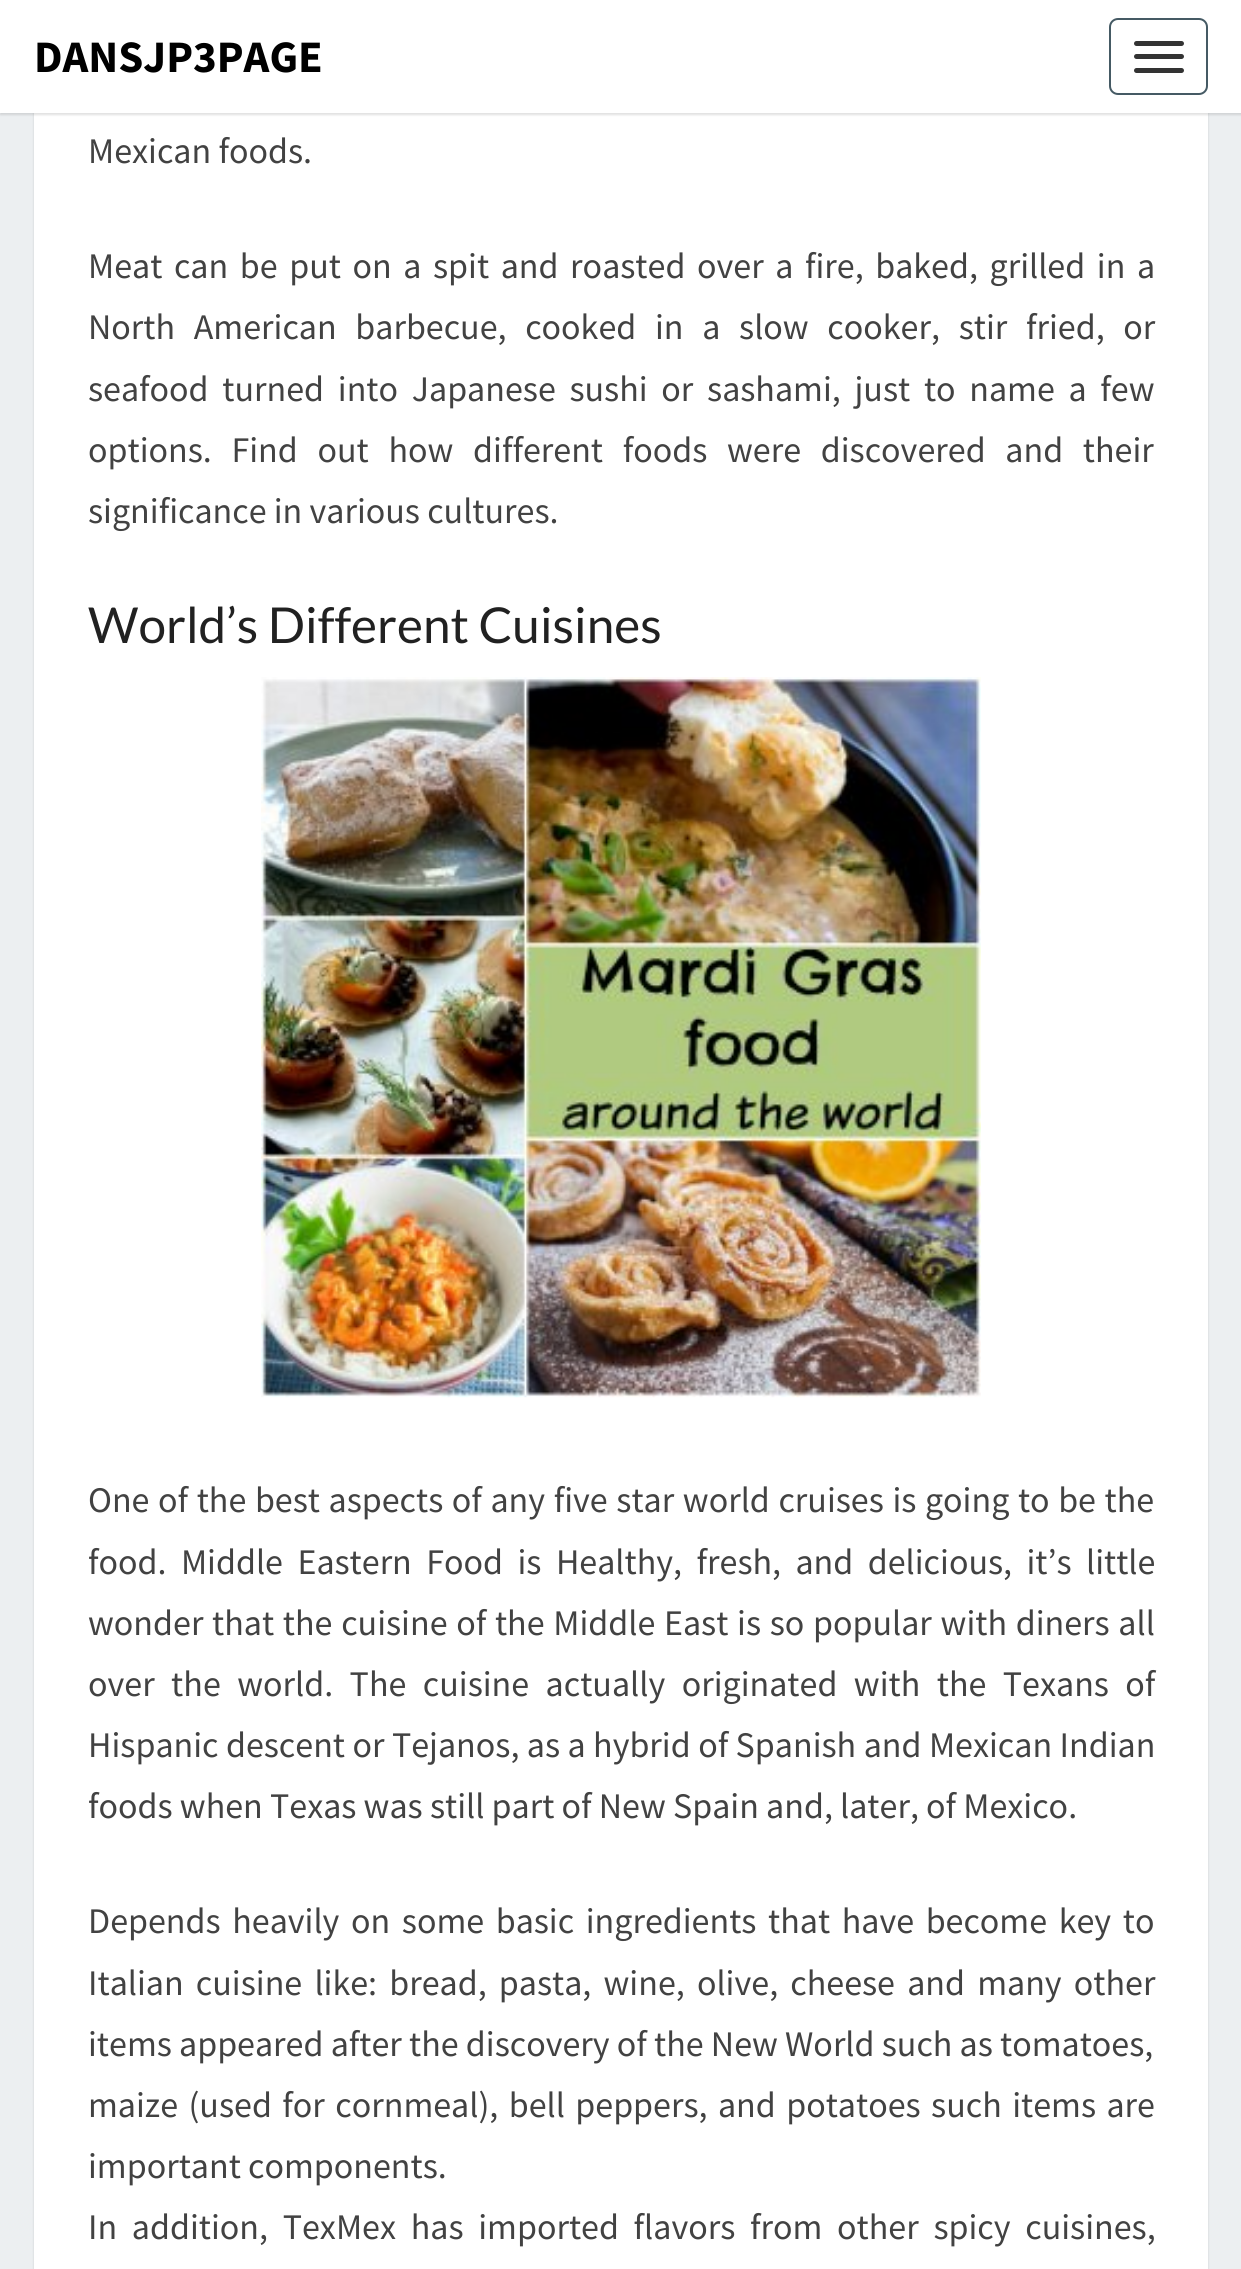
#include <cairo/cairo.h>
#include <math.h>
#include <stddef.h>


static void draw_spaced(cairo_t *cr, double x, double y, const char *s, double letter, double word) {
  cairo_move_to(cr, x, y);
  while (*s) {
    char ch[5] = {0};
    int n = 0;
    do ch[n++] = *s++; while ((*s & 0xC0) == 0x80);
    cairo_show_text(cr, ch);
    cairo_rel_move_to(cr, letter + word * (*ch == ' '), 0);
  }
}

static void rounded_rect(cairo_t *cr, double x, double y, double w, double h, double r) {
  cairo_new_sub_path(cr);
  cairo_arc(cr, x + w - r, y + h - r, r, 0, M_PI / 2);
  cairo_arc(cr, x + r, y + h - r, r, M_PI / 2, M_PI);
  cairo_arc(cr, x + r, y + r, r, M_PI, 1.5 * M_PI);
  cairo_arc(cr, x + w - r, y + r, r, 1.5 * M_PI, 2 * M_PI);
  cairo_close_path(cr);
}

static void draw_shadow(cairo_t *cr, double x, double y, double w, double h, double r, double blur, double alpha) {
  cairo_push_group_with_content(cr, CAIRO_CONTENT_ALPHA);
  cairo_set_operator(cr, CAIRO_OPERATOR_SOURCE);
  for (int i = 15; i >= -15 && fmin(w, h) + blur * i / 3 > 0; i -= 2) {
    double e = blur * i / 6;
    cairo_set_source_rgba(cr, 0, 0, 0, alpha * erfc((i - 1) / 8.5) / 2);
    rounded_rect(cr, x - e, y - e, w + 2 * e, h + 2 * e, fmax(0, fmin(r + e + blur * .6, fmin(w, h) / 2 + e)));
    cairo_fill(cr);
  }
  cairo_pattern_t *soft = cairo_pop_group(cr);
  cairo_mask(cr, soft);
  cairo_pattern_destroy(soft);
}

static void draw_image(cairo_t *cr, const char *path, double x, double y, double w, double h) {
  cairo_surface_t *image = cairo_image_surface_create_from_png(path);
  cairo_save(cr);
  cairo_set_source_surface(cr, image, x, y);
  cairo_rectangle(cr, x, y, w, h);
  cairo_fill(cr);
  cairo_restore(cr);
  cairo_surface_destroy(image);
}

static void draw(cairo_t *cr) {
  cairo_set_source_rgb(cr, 236 / 255.0, 239 / 255.0, 241 / 255.0);
  cairo_paint(cr);
  cairo_set_source_rgb(cr, 0, 0, 0);
  draw_shadow(cr, 34, -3, 1174, 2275, 0, 1, 0.15);
  cairo_set_source_rgb(cr, 1, 1, 1);
  cairo_rectangle(cr, 34, 113, 1174, 2156);
  cairo_fill(cr);
  cairo_set_source_rgb(cr, 100 / 255.0, 100 / 255.0, 100 / 255.0);
  draw_shadow(cr, 0, 2, 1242, 113, 0, 1, 0.2);
  cairo_set_source_rgb(cr, 1, 1, 1);
  cairo_rectangle(cr, 0, 0, 1241, 113);
  cairo_fill(cr);
  rounded_rect(cr, 1110, 19, 97, 75, 8);
  cairo_set_source_rgb(cr, 69 / 255.0, 90 / 255.0, 100 / 255.0);
  cairo_stroke(cr);
  cairo_set_source_rgb(cr, 51 / 255.0, 51 / 255.0, 51 / 255.0);
  rounded_rect(cr, 1134, 41, 50, 5, 2.5);
  cairo_fill(cr);
  rounded_rect(cr, 1134, 54, 50, 5, 2.5);
  cairo_fill(cr);
  rounded_rect(cr, 1134, 68, 50, 5, 2.5);
  cairo_fill(cr);
  draw_image(cr, "images/1.png", 261, 677, 720, 721);
  cairo_select_font_face(cr, "Source Sans Pro", CAIRO_FONT_SLANT_NORMAL, CAIRO_FONT_WEIGHT_BOLD);
  cairo_set_font_size(cr, 45);
  cairo_set_source_rgb(cr, 0, 0, 0);
  cairo_move_to(cr, 34, 72);
  cairo_show_text(cr, "DANSJP3PAGE");
  cairo_select_font_face(cr, "Source Sans Pro", CAIRO_FONT_SLANT_NORMAL, CAIRO_FONT_WEIGHT_NORMAL);
  cairo_set_font_size(cr, 36);
  cairo_set_source_rgb(cr, 66 / 255.0, 66 / 255.0, 66 / 255.0);
  cairo_move_to(cr, 88, 163);
  cairo_show_text(cr, "Mexican foods.");
  draw_spaced(cr, 88, 278, "Meat can be put on a spit and roasted over a fire, baked, grilled in a", 0, 4.4);
  draw_spaced(cr, 88, 339, "North American barbecue, cooked in a slow cooker, stir fried, or", 0, 11.5);
  draw_spaced(cr, 88, 401, "seafood turned into Japanese sushi or sashami, just to name a few", 0, 6.5);
  draw_spaced(cr, 88, 462, "options. Find out how different foods were discovered and their", 0, 12.5);
  cairo_move_to(cr, 88, 523);
  cairo_show_text(cr, "significance in various cultures.");
  cairo_select_font_face(cr, "Lato", CAIRO_FONT_SLANT_NORMAL, CAIRO_FONT_WEIGHT_NORMAL);
  cairo_set_font_size(cr, 49.5);
  cairo_set_source_rgb(cr, 33 / 255.0, 33 / 255.0, 33 / 255.0);
  cairo_move_to(cr, 88, 643);
  cairo_show_text(cr, "World’s Different Cuisines");
  cairo_select_font_face(cr, "Source Sans Pro", CAIRO_FONT_SLANT_NORMAL, CAIRO_FONT_WEIGHT_NORMAL);
  cairo_set_font_size(cr, 36);
  cairo_set_source_rgb(cr, 66 / 255.0, 66 / 255.0, 66 / 255.0);
  draw_spaced(cr, 88, 1512, "One of the best aspects of any five star world cruises is going to be the", 0, 1.4);
  draw_spaced(cr, 88, 1574, "food. Middle Eastern Food is Healthy, fresh, and delicious, it’s little", 0, 7.25);
  draw_spaced(cr, 88, 1635, "wonder that the cuisine of the Middle East is so popular with diners all", 0, 1.5);
  draw_spaced(cr, 88, 1696, "over the world. The cuisine actually originated with the Texans of", 0, 9.25);
  draw_spaced(cr, 88, 1757, "Hispanic descent or Tejanos, as a hybrid of Spanish and Mexican Indian", 0, 0.25);
  cairo_move_to(cr, 88, 1818);
  cairo_show_text(cr, "foods when Texas was still part of New Spain and, later, of Mexico.");
  draw_spaced(cr, 88, 1933, "Depends heavily on some basic ingredients that have become key to", 0, 4.4);
  draw_spaced(cr, 88, 1995, "Italian cuisine like: bread, pasta, wine, olive, cheese and many other", 0, 5);
  cairo_move_to(cr, 88, 2056);
  cairo_show_text(cr, "items appeared after the discovery of the New World such as tomatoes,");
  draw_spaced(cr, 88, 2117, "maize (used for cornmeal), bell peppers, and potatoes such items are", 0, 3.25);
  cairo_move_to(cr, 88, 2178);
  cairo_show_text(cr, "important components.");
  draw_spaced(cr, 88, 2239, "In addition, TexMex has imported flavors from other spicy cuisines,", 0, 7.5);
}

int main(void) {
  cairo_surface_t *surface = cairo_image_surface_create(CAIRO_FORMAT_RGB24, 1241, 2269);
  cairo_t *cr = cairo_create(surface);
  cairo_font_options_t *options = cairo_font_options_create();
  cairo_font_options_set_hint_metrics(options, CAIRO_HINT_METRICS_OFF);
  cairo_font_options_set_hint_style(options, CAIRO_HINT_STYLE_NONE);
  cairo_set_font_options(cr, options);
  cairo_set_miter_limit(cr, 4);
  draw(cr);
  cairo_surface_write_to_png(surface, "out.png");
  cairo_font_options_destroy(options);
  cairo_destroy(cr);
  cairo_surface_destroy(surface);
  return 0;
}
